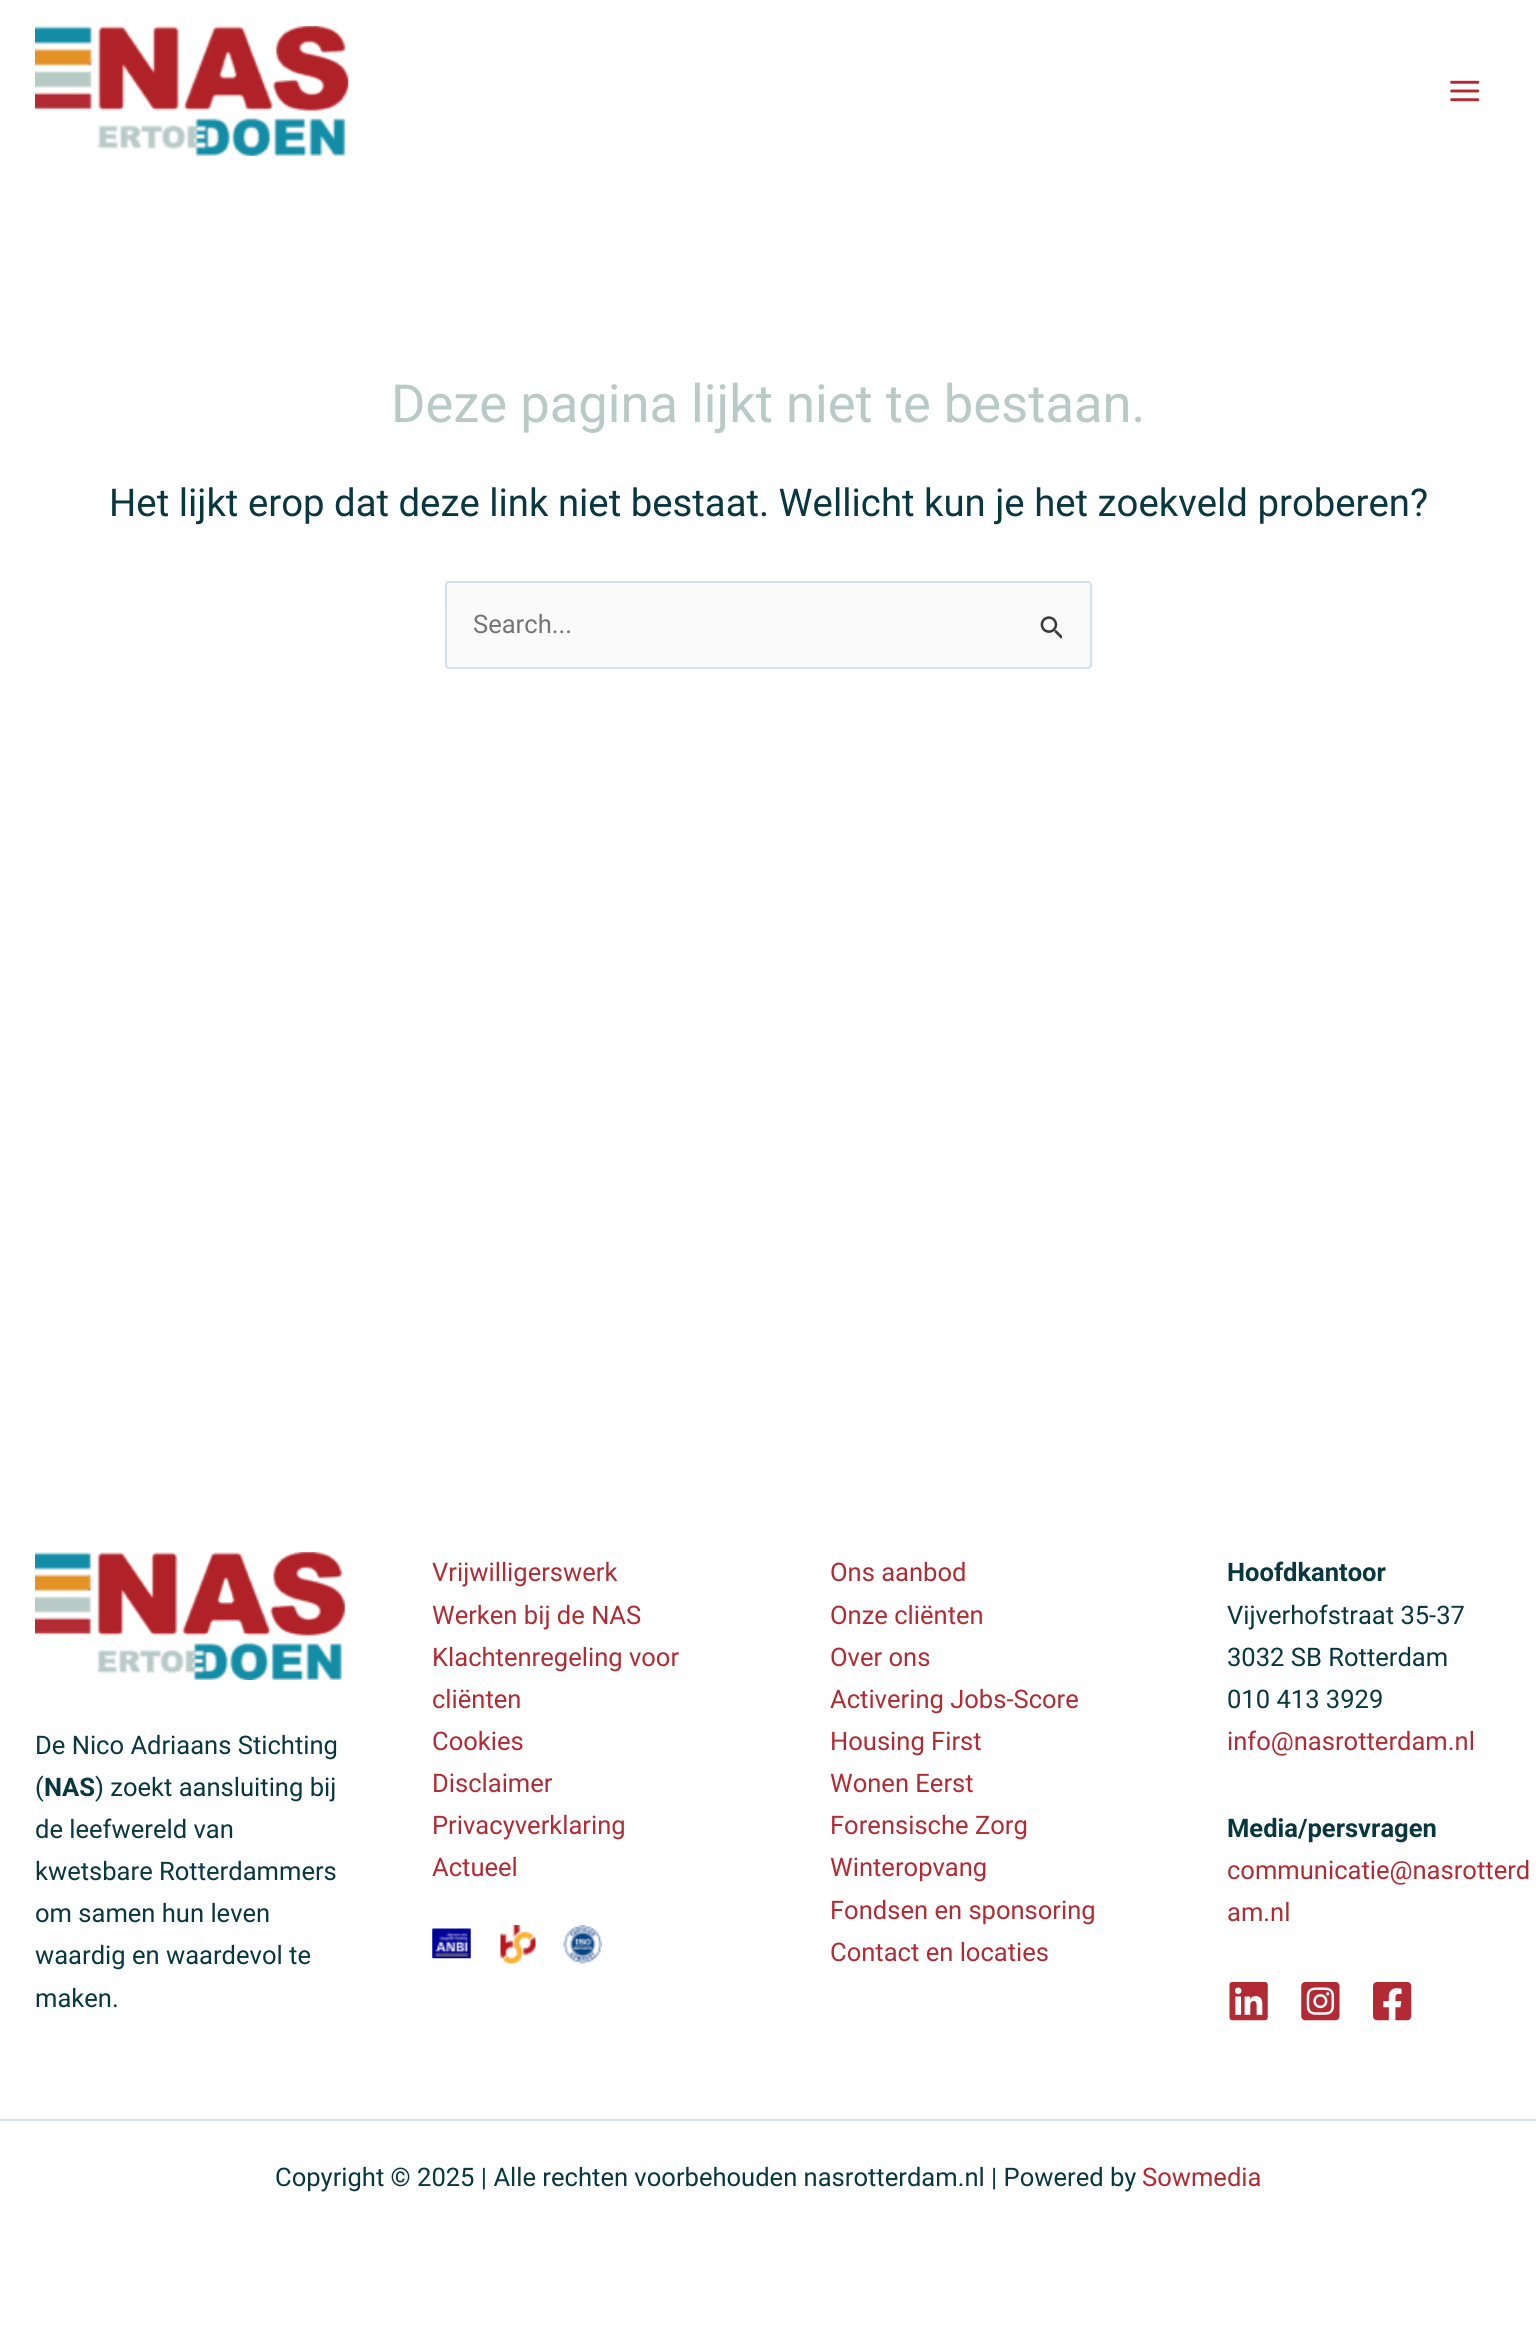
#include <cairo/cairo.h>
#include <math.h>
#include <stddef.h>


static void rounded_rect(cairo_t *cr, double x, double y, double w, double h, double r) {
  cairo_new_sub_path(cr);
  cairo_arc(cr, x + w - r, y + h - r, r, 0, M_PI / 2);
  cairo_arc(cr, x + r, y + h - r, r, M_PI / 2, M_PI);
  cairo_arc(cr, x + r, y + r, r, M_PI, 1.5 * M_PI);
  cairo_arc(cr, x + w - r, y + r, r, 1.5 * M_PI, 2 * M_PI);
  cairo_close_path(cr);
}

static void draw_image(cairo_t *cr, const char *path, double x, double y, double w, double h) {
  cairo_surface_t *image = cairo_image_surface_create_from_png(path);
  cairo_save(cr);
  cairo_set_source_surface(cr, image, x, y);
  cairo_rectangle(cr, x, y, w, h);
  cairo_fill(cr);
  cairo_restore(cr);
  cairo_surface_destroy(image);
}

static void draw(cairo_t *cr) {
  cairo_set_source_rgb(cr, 1, 1, 1);
  cairo_paint(cr);
  draw_image(cr, "images/1.png", 35, 26, 314, 130);
  draw_image(cr, "images/2.png", 1450, 80, 30, 22);
  cairo_set_source_rgb(cr, 250 / 255.0, 250 / 255.0, 250 / 255.0);
  rounded_rect(cr, 446, 582, 645, 86, 3);
  cairo_fill_preserve(cr);
  cairo_set_source_rgb(cr, 209 / 255.0, 226 / 255.0, 234 / 255.0);
  cairo_stroke(cr);
  draw_image(cr, "images/3.png", 1040, 616, 22, 23);
  draw_image(cr, "images/4.png", 35, 1552, 310, 128);
  draw_image(cr, "images/5.png", 432, 1928, 39, 31);
  draw_image(cr, "images/6.png", 500, 1925, 36, 39);
  draw_image(cr, "images/7.png", 563, 1925, 39, 39);
  draw_image(cr, "images/8.png", 1229, 1982, 39, 39);
  draw_image(cr, "images/9.png", 1301, 1982, 39, 39);
  draw_image(cr, "images/10.png", 1373, 1982, 39, 39);
  cairo_rectangle(cr, 0, 2119, 1536, 2);
  cairo_fill(cr);
  cairo_select_font_face(cr, "Roboto", CAIRO_FONT_SLANT_NORMAL, CAIRO_FONT_WEIGHT_NORMAL);
  cairo_set_font_size(cr, 52.5);
  cairo_set_source_rgb(cr, 184 / 255.0, 202 / 255.0, 197 / 255.0);
  cairo_move_to(cr, 391, 422);
  cairo_show_text(cr, "Deze pagina lijkt niet te bestaan.");
  cairo_set_font_size(cr, 38.3);
  cairo_set_source_rgb(cr, 9 / 255.0, 55 / 255.0, 63 / 255.0);
  cairo_move_to(cr, 109, 516);
  cairo_show_text(cr, "Het lijkt erop dat deze link niet bestaat. Wellicht kun je het zoekveld proberen?");
  cairo_set_font_size(cr, 25.55);
  cairo_set_source_rgb(cr, 117 / 255.0, 117 / 255.0, 117 / 255.0);
  cairo_move_to(cr, 473, 633);
  cairo_show_text(cr, "Search...");
  cairo_set_source_rgb(cr, 9 / 255.0, 55 / 255.0, 63 / 255.0);
  cairo_move_to(cr, 35, 1754);
  cairo_show_text(cr, "De Nico Adriaans Stichting");
  cairo_move_to(cr, 35, 1796);
  cairo_show_text(cr, "(");
  cairo_select_font_face(cr, "Roboto", CAIRO_FONT_SLANT_NORMAL, CAIRO_FONT_WEIGHT_BOLD);
  cairo_move_to(cr, 44, 1796);
  cairo_show_text(cr, "NAS");
  cairo_select_font_face(cr, "Roboto", CAIRO_FONT_SLANT_NORMAL, CAIRO_FONT_WEIGHT_NORMAL);
  cairo_move_to(cr, 95, 1796);
  cairo_show_text(cr, ") zoekt aansluiting bij");
  cairo_move_to(cr, 35, 1838);
  cairo_show_text(cr, "de leefwereld van");
  cairo_move_to(cr, 35, 1880);
  cairo_show_text(cr, "kwetsbare Rotterdammers");
  cairo_move_to(cr, 35, 1922);
  cairo_show_text(cr, "om samen hun leven");
  cairo_move_to(cr, 35, 1964);
  cairo_show_text(cr, "waardig en waardevol te");
  cairo_move_to(cr, 35, 2007);
  cairo_show_text(cr, "maken.");
  cairo_set_source_rgb(cr, 178 / 255.0, 43 / 255.0, 52 / 255.0);
  cairo_move_to(cr, 432, 1581);
  cairo_show_text(cr, "Vrijwilligerswerk");
  cairo_move_to(cr, 432, 1624);
  cairo_show_text(cr, "Werken bij de NAS");
  cairo_move_to(cr, 432, 1666);
  cairo_show_text(cr, "Klachtenregeling voor");
  cairo_move_to(cr, 432, 1708);
  cairo_show_text(cr, "cliënten");
  cairo_move_to(cr, 432, 1750);
  cairo_show_text(cr, "Cookies");
  cairo_move_to(cr, 432, 1792);
  cairo_show_text(cr, "Disclaimer");
  cairo_move_to(cr, 432, 1834);
  cairo_show_text(cr, "Privacyverklaring");
  cairo_move_to(cr, 432, 1876);
  cairo_show_text(cr, "Actueel");
  cairo_move_to(cr, 830, 1581);
  cairo_show_text(cr, "Ons aanbod");
  cairo_move_to(cr, 830, 1624);
  cairo_show_text(cr, "Onze cliënten");
  cairo_move_to(cr, 830, 1666);
  cairo_show_text(cr, "Over ons");
  cairo_move_to(cr, 830, 1708);
  cairo_show_text(cr, "Activering Jobs-Score");
  cairo_move_to(cr, 830, 1750);
  cairo_show_text(cr, "Housing First");
  cairo_move_to(cr, 830, 1792);
  cairo_show_text(cr, "Wonen Eerst");
  cairo_move_to(cr, 830, 1834);
  cairo_show_text(cr, "Forensische Zorg");
  cairo_move_to(cr, 830, 1876);
  cairo_show_text(cr, "Winteropvang");
  cairo_move_to(cr, 830, 1919);
  cairo_show_text(cr, "Fondsen en sponsoring");
  cairo_move_to(cr, 830, 1961);
  cairo_show_text(cr, "Contact en locaties");
  cairo_select_font_face(cr, "Roboto", CAIRO_FONT_SLANT_NORMAL, CAIRO_FONT_WEIGHT_BOLD);
  cairo_set_source_rgb(cr, 9 / 255.0, 55 / 255.0, 63 / 255.0);
  cairo_move_to(cr, 1227, 1581);
  cairo_show_text(cr, "Hoofdkantoor");
  cairo_select_font_face(cr, "Roboto", CAIRO_FONT_SLANT_NORMAL, CAIRO_FONT_WEIGHT_NORMAL);
  cairo_move_to(cr, 1227, 1624);
  cairo_show_text(cr, "Vijverhofstraat 35-37");
  cairo_move_to(cr, 1227, 1666);
  cairo_show_text(cr, "3032 SB Rotterdam");
  cairo_move_to(cr, 1227, 1708);
  cairo_show_text(cr, "010 413 3929");
  cairo_set_source_rgb(cr, 178 / 255.0, 43 / 255.0, 52 / 255.0);
  cairo_move_to(cr, 1227, 1750);
  cairo_show_text(cr, "info@nasrotterdam.nl");
  cairo_select_font_face(cr, "Roboto", CAIRO_FONT_SLANT_NORMAL, CAIRO_FONT_WEIGHT_BOLD);
  cairo_set_source_rgb(cr, 9 / 255.0, 55 / 255.0, 63 / 255.0);
  cairo_move_to(cr, 1227, 1837);
  cairo_show_text(cr, "Media/persvragen");
  cairo_select_font_face(cr, "Roboto", CAIRO_FONT_SLANT_NORMAL, CAIRO_FONT_WEIGHT_NORMAL);
  cairo_set_source_rgb(cr, 178 / 255.0, 43 / 255.0, 52 / 255.0);
  cairo_move_to(cr, 1227, 1879);
  cairo_show_text(cr, "communicatie@nasrotterd");
  cairo_move_to(cr, 1227, 1921);
  cairo_show_text(cr, "am.nl");
  cairo_set_source_rgb(cr, 9 / 255.0, 55 / 255.0, 63 / 255.0);
  cairo_move_to(cr, 275, 2186);
  cairo_show_text(cr, "Copyright © 2025 | Alle rechten voorbehouden nasrotterdam.nl | Powered by");
  cairo_set_source_rgb(cr, 178 / 255.0, 43 / 255.0, 52 / 255.0);
  cairo_move_to(cr, 1142, 2186);
  cairo_show_text(cr, "Sowmedia");
}

int main(void) {
  cairo_surface_t *surface = cairo_image_surface_create(CAIRO_FORMAT_RGB24, 1536, 2331);
  cairo_t *cr = cairo_create(surface);
  cairo_font_options_t *options = cairo_font_options_create();
  cairo_font_options_set_hint_metrics(options, CAIRO_HINT_METRICS_OFF);
  cairo_font_options_set_hint_style(options, CAIRO_HINT_STYLE_NONE);
  cairo_set_font_options(cr, options);
  cairo_set_miter_limit(cr, 4);
  draw(cr);
  cairo_surface_write_to_png(surface, "out.png");
  cairo_font_options_destroy(options);
  cairo_destroy(cr);
  cairo_surface_destroy(surface);
  return 0;
}
